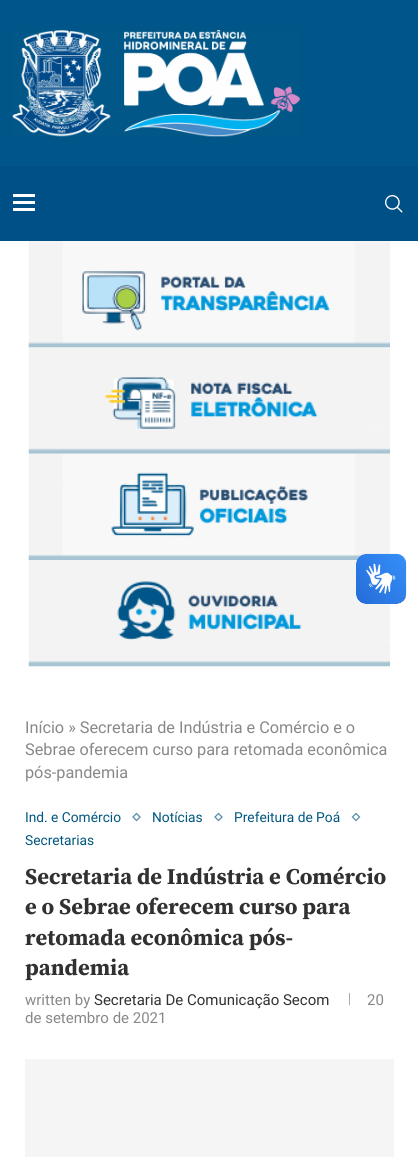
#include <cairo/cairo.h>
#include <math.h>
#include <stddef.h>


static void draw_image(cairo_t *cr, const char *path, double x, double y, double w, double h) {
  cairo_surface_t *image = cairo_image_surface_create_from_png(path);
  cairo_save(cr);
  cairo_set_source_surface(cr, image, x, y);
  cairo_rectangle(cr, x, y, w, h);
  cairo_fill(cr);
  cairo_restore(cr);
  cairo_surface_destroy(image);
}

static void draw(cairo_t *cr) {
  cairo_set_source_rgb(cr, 1, 1, 1);
  cairo_paint(cr);
  draw_image(cr, "images/5.png", 28, 241, 362, 107);
  draw_image(cr, "images/6.png", 28, 347, 362, 107);
  draw_image(cr, "images/7.png", 28, 453, 362, 107);
  draw_image(cr, "images/8.png", 28, 560, 362, 107);
  draw_image(cr, "images/1.png", 356, 553, 51, 51);
  draw_image(cr, "images/2.png", 356, 554, 50, 50);
  cairo_set_source_rgb(cr, 0, 86 / 255.0, 136 / 255.0);
  cairo_rectangle(cr, 0, 0, 418, 166);
  cairo_fill(cr);
  draw_image(cr, "images/3.png", 12, 30, 288, 107);
  cairo_set_source_rgb(cr, 0, 80 / 255.0, 136 / 255.0);
  cairo_rectangle(cr, 0, 166, 418, 75);
  cairo_fill(cr);
  cairo_set_source_rgb(cr, 1, 1, 1);
  cairo_rectangle(cr, 13, 194, 22, 3);
  cairo_fill(cr);
  cairo_rectangle(cr, 13, 201, 22, 3);
  cairo_fill(cr);
  cairo_rectangle(cr, 13, 208, 22, 3);
  cairo_fill(cr);
  draw_image(cr, "images/4.png", 385, 195, 18, 18);
  cairo_new_path(cr);
  cairo_move_to(cr, 136.5, 813.5);
  cairo_line_to(cr, 140, 817);
  cairo_line_to(cr, 136.5, 820.5);
  cairo_line_to(cr, 133, 817);
  cairo_close_path(cr);
  cairo_set_source_rgb(cr, 89 / 255.0, 145 / 255.0, 172 / 255.0);
  cairo_set_line_width(cr, 1.3);
  cairo_stroke(cr);
  cairo_new_path(cr);
  cairo_move_to(cr, 218.5, 813.5);
  cairo_line_to(cr, 222, 817);
  cairo_line_to(cr, 218.5, 820.5);
  cairo_line_to(cr, 215, 817);
  cairo_close_path(cr);
  cairo_stroke(cr);
  cairo_new_path(cr);
  cairo_move_to(cr, 356, 813.5);
  cairo_line_to(cr, 359.5, 817);
  cairo_line_to(cr, 356, 820.5);
  cairo_line_to(cr, 352.5, 817);
  cairo_close_path(cr);
  cairo_stroke(cr);
  cairo_set_source_rgb(cr, 172 / 255.0, 172 / 255.0, 172 / 255.0);
  cairo_rectangle(cr, 349, 993, 1, 12);
  cairo_fill(cr);
  cairo_set_source_rgb(cr, 245 / 255.0, 245 / 255.0, 245 / 255.0);
  cairo_rectangle(cr, 25, 1059, 369, 98);
  cairo_fill(cr);
  cairo_select_font_face(cr, "Roboto", CAIRO_FONT_SLANT_NORMAL, CAIRO_FONT_WEIGHT_NORMAL);
  cairo_set_font_size(cr, 16.25);
  cairo_set_source_rgb(cr, 136 / 255.0, 136 / 255.0, 136 / 255.0);
  cairo_move_to(cr, 25, 733);
  cairo_show_text(cr, "Início » Secretaria de Indústria e Comércio e o");
  cairo_move_to(cr, 25, 755);
  cairo_show_text(cr, "Sebrae oferecem curso para retomada econômica");
  cairo_move_to(cr, 25, 778);
  cairo_show_text(cr, "pós-pandemia");
  cairo_set_font_size(cr, 13.75);
  cairo_set_source_rgb(cr, 0, 86 / 255.0, 128 / 255.0);
  cairo_move_to(cr, 25, 822);
  cairo_show_text(cr, "Ind. e Comércio");
  cairo_move_to(cr, 152, 822);
  cairo_show_text(cr, "Notícias");
  cairo_move_to(cr, 234, 822);
  cairo_show_text(cr, "Prefeitura de Poá");
  cairo_move_to(cr, 25, 845);
  cairo_show_text(cr, "Secretarias");
  cairo_select_font_face(cr, "Source Serif Pro", CAIRO_FONT_SLANT_NORMAL, CAIRO_FONT_WEIGHT_BOLD);
  cairo_set_font_size(cr, 22.5);
  cairo_set_source_rgb(cr, 49 / 255.0, 49 / 255.0, 49 / 255.0);
  cairo_move_to(cr, 25, 884);
  cairo_show_text(cr, "Secretaria de Indústria e Comércio");
  cairo_move_to(cr, 25, 914);
  cairo_show_text(cr, "e o Sebrae oferecem curso para");
  cairo_move_to(cr, 25, 945);
  cairo_show_text(cr, "retomada econômica pós-");
  cairo_move_to(cr, 25, 975);
  cairo_show_text(cr, "pandemia");
  cairo_select_font_face(cr, "Roboto", CAIRO_FONT_SLANT_NORMAL, CAIRO_FONT_WEIGHT_NORMAL);
  cairo_set_font_size(cr, 15);
  cairo_set_source_rgb(cr, 136 / 255.0, 136 / 255.0, 136 / 255.0);
  cairo_move_to(cr, 25, 1005);
  cairo_show_text(cr, "written by");
  cairo_set_source_rgb(cr, 49 / 255.0, 49 / 255.0, 49 / 255.0);
  cairo_move_to(cr, 94, 1005);
  cairo_show_text(cr, "Secretaria De Comunicação Secom");
  cairo_set_source_rgb(cr, 136 / 255.0, 136 / 255.0, 136 / 255.0);
  cairo_move_to(cr, 367, 1005);
  cairo_show_text(cr, "20");
  cairo_move_to(cr, 25, 1023);
  cairo_show_text(cr, "de setembro de 2021");
}

int main(void) {
  cairo_surface_t *surface = cairo_image_surface_create(CAIRO_FORMAT_RGB24, 418, 1157);
  cairo_t *cr = cairo_create(surface);
  cairo_font_options_t *options = cairo_font_options_create();
  cairo_font_options_set_hint_metrics(options, CAIRO_HINT_METRICS_OFF);
  cairo_font_options_set_hint_style(options, CAIRO_HINT_STYLE_NONE);
  cairo_set_font_options(cr, options);
  cairo_set_miter_limit(cr, 4);
  draw(cr);
  cairo_surface_write_to_png(surface, "out.png");
  cairo_font_options_destroy(options);
  cairo_destroy(cr);
  cairo_surface_destroy(surface);
  return 0;
}
